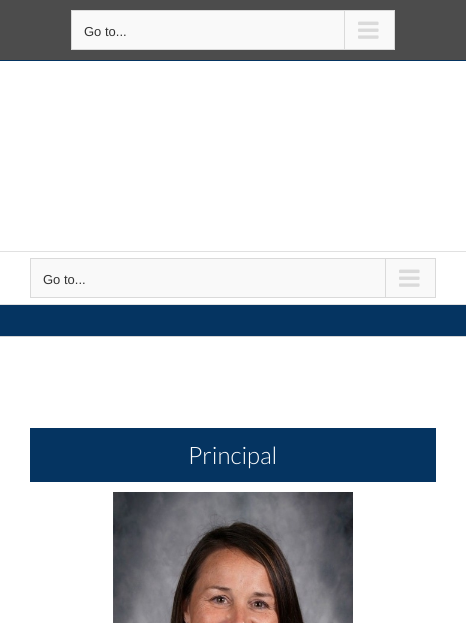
#include <cairo/cairo.h>
#include <math.h>
#include <stddef.h>


static void draw_image(cairo_t *cr, const char *path, double x, double y, double w, double h) {
  cairo_surface_t *image = cairo_image_surface_create_from_png(path);
  cairo_save(cr);
  cairo_set_source_surface(cr, image, x, y);
  cairo_rectangle(cr, x, y, w, h);
  cairo_fill(cr);
  cairo_restore(cr);
  cairo_surface_destroy(image);
}

static void draw(cairo_t *cr) {
  cairo_set_source_rgb(cr, 1, 1, 1);
  cairo_paint(cr);
  cairo_set_source_rgb(cr, 76 / 255.0, 76 / 255.0, 76 / 255.0);
  cairo_rectangle(cr, 0, 0, 466, 60);
  cairo_fill(cr);
  cairo_set_source_rgb(cr, 5 / 255.0, 52 / 255.0, 97 / 255.0);
  cairo_rectangle(cr, 0, 60, 466, 1);
  cairo_fill(cr);
  cairo_set_source_rgb(cr, 249 / 255.0, 249 / 255.0, 249 / 255.0);
  cairo_rectangle(cr, 71.5, 10.5, 323, 39);
  cairo_fill_preserve(cr);
  cairo_set_source_rgb(cr, 218 / 255.0, 218 / 255.0, 218 / 255.0);
  cairo_set_line_width(cr, 1);
  cairo_stroke(cr);
  cairo_rectangle(cr, 344, 11, 1, 38);
  cairo_fill(cr);
  draw_image(cr, "images/1.png", 358, 21, 21, 18);
  cairo_set_source_rgb(cr, 225 / 255.0, 225 / 255.0, 225 / 255.0);
  cairo_rectangle(cr, 0, 251, 466, 1);
  cairo_fill(cr);
  cairo_rectangle(cr, 0, 304, 466, 1);
  cairo_fill(cr);
  cairo_set_source_rgb(cr, 249 / 255.0, 249 / 255.0, 249 / 255.0);
  cairo_rectangle(cr, 30.5, 258.5, 405, 39);
  cairo_fill_preserve(cr);
  cairo_set_source_rgb(cr, 218 / 255.0, 218 / 255.0, 218 / 255.0);
  cairo_stroke(cr);
  cairo_rectangle(cr, 385, 259, 1, 38);
  cairo_fill(cr);
  draw_image(cr, "images/1.png", 399, 269, 21, 18);
  cairo_set_source_rgb(cr, 5 / 255.0, 52 / 255.0, 97 / 255.0);
  cairo_rectangle(cr, 0, 305, 466, 31);
  cairo_fill(cr);
  cairo_set_source_rgb(cr, 210 / 255.0, 211 / 255.0, 212 / 255.0);
  cairo_rectangle(cr, 0, 336, 466, 1);
  cairo_fill(cr);
  cairo_set_source_rgb(cr, 5 / 255.0, 52 / 255.0, 97 / 255.0);
  cairo_rectangle(cr, 30, 428, 406, 54);
  cairo_fill(cr);
  draw_image(cr, "images/2.png", 113, 492, 240, 131);
  cairo_select_font_face(cr, "Liberation Sans", CAIRO_FONT_SLANT_NORMAL, CAIRO_FONT_WEIGHT_NORMAL);
  cairo_set_font_size(cr, 13);
  cairo_set_source_rgb(cr, 51 / 255.0, 51 / 255.0, 51 / 255.0);
  cairo_move_to(cr, 84, 36);
  cairo_show_text(cr, "Go to...");
  cairo_move_to(cr, 43, 284);
  cairo_show_text(cr, "Go to...");
  cairo_select_font_face(cr, "Lato Light", CAIRO_FONT_SLANT_NORMAL, CAIRO_FONT_WEIGHT_NORMAL);
  cairo_set_font_size(cr, 24);
  cairo_set_source_rgb(cr, 1, 1, 1);
  cairo_move_to(cr, 188, 464);
  cairo_show_text(cr, "Principal");
}

int main(void) {
  cairo_surface_t *surface = cairo_image_surface_create(CAIRO_FORMAT_RGB24, 466, 623);
  cairo_t *cr = cairo_create(surface);
  cairo_font_options_t *options = cairo_font_options_create();
  cairo_font_options_set_hint_metrics(options, CAIRO_HINT_METRICS_OFF);
  cairo_font_options_set_hint_style(options, CAIRO_HINT_STYLE_NONE);
  cairo_set_font_options(cr, options);
  cairo_set_miter_limit(cr, 4);
  draw(cr);
  cairo_surface_write_to_png(surface, "out.png");
  cairo_font_options_destroy(options);
  cairo_destroy(cr);
  cairo_surface_destroy(surface);
  return 0;
}
